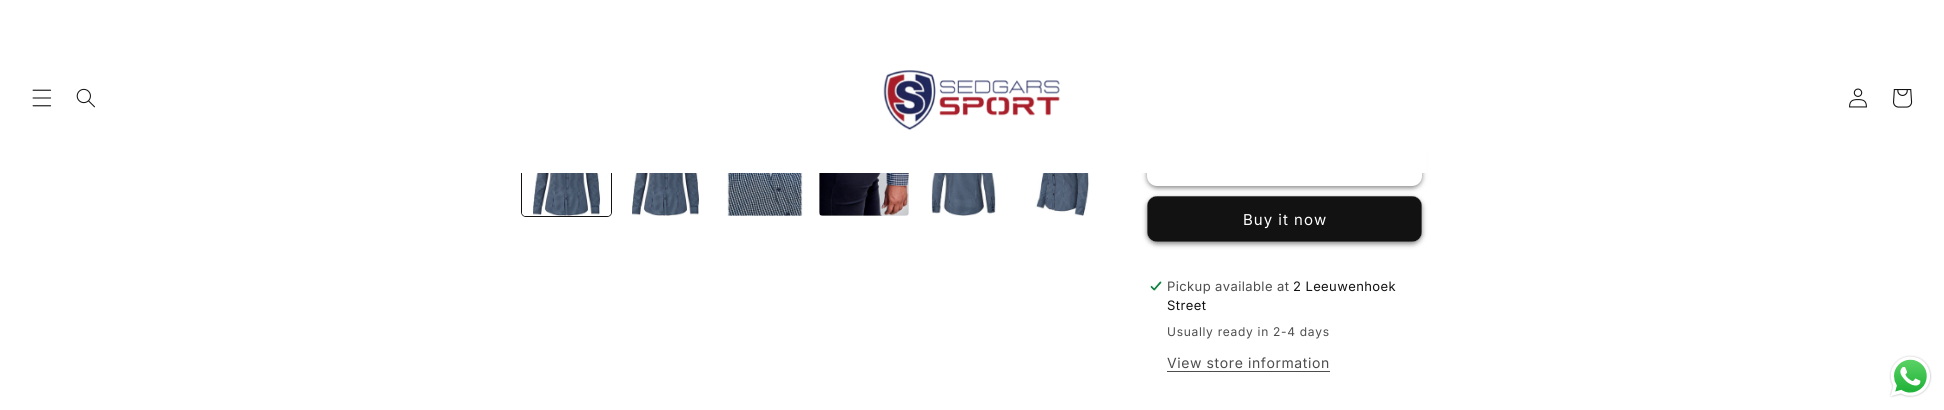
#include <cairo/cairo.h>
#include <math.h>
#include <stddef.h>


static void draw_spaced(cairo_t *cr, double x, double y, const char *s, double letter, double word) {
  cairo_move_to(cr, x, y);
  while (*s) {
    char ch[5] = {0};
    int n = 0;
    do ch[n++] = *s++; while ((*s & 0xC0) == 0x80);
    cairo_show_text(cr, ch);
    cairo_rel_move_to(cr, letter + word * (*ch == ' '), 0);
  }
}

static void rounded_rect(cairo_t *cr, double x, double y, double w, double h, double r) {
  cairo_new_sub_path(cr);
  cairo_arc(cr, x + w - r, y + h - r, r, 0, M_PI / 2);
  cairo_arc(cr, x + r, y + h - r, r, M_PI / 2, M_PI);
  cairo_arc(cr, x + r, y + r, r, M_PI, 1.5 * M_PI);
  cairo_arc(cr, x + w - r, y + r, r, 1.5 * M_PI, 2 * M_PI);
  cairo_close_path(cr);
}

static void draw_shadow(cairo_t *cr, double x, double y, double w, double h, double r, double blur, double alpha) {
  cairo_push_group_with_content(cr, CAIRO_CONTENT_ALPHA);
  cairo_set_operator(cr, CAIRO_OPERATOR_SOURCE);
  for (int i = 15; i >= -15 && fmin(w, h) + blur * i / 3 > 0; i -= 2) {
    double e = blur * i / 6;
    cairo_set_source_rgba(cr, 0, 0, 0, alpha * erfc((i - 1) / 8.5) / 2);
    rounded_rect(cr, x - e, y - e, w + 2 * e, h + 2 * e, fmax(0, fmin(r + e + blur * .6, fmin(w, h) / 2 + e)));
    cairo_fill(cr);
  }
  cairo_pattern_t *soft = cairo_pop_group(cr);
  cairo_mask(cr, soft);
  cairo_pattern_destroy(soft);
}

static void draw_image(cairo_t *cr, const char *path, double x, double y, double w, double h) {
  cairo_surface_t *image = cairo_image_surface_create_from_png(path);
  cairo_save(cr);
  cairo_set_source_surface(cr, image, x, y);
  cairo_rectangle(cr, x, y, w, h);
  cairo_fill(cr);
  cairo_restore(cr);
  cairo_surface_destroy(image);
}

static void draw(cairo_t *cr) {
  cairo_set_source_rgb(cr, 1, 1, 1);
  cairo_paint(cr);
  rounded_rect(cr, 521.5, 126.5, 90, 90, 4.5);
  cairo_set_source_rgb(cr, 18 / 255.0, 18 / 255.0, 18 / 255.0);
  cairo_set_line_width(cr, 1);
  cairo_stroke(cr);
  cairo_set_source_rgb(cr, 18 / 255.0, 18 / 255.0, 18 / 255.0);
  draw_shadow(cr, 1147, 143, 275, 45, 10, 2.5, 0.5);
  cairo_set_source_rgb(cr, 1, 1, 1);
  rounded_rect(cr, 1147, 141, 275, 45, 10);
  cairo_fill(cr);
  cairo_rectangle(cr, 521, 126, 906, 47);
  cairo_fill(cr);
  draw_image(cr, "images/1.png", 32, 89, 20, 18);
  draw_image(cr, "images/2.png", 76, 88, 19, 20);
  draw_image(cr, "images/3.png", 883, 70, 177, 60);
  draw_image(cr, "images/4.png", 1849, 88, 18, 20);
  draw_image(cr, "images/5.png", 1893, 89, 20, 19);
  draw_image(cr, "images/6.png", 522, 173, 89, 43);
  draw_image(cr, "images/7.png", 632, 173, 67, 43);
  draw_image(cr, "images/8.png", 727, 173, 76, 43);
  draw_image(cr, "images/9.png", 819, 173, 90, 43);
  draw_image(cr, "images/10.png", 931, 173, 65, 43);
  draw_image(cr, "images/11.png", 1035, 173, 54, 43);
  cairo_set_source_rgb(cr, 18 / 255.0, 18 / 255.0, 18 / 255.0);
  draw_shadow(cr, 1147, 198, 275, 46, 10, 2.5, 0.5);
  cairo_set_source_rgb(cr, 18 / 255.0, 18 / 255.0, 18 / 255.0);
  rounded_rect(cr, 1147, 196, 275, 46, 10);
  cairo_fill(cr);
  rounded_rect(cr, 1147.15, 196.15, 274.7, 45.7, 9.85);
  cairo_set_source_rgba(cr, 1, 1, 1, 0.95);
  cairo_set_line_width(cr, 0.3);
  cairo_stroke(cr);
  draw_image(cr, "images/12.png", 1150, 281, 12, 10);
  cairo_set_source_rgb(cr, 77 / 255.0, 77 / 255.0, 77 / 255.0);
  cairo_rectangle(cr, 1167, 371, 163, 1);
  cairo_fill(cr);
  draw_image(cr, "images/13.png", 1889, 355, 43, 43);
  cairo_select_font_face(cr, "Inter", CAIRO_FONT_SLANT_NORMAL, CAIRO_FONT_WEIGHT_NORMAL);
  cairo_set_font_size(cr, 15);
  cairo_set_source_rgb(cr, 1, 1, 1);
  draw_spaced(cr, 1243, 225, "Buy it now", 1, 0);
  cairo_set_font_size(cr, 13);
  cairo_set_source_rgb(cr, 77 / 255.0, 77 / 255.0, 77 / 255.0);
  draw_spaced(cr, 1167, 291, "Pickup available at", 0.4, 0);
  cairo_set_source_rgb(cr, 18 / 255.0, 18 / 255.0, 18 / 255.0);
  draw_spaced(cr, 1293, 291, "2 Leeuwenhoek", 0.4, 0);
  draw_spaced(cr, 1167, 310, "Street", 0.4, 0);
  cairo_set_font_size(cr, 12);
  cairo_set_source_rgb(cr, 77 / 255.0, 77 / 255.0, 77 / 255.0);
  draw_spaced(cr, 1167, 336, "Usually ready in 2-4 days", 0.7, 0);
  cairo_set_font_size(cr, 14);
  draw_spaced(cr, 1167, 368, "View store information", 0.6, 0);
}

int main(void) {
  cairo_surface_t *surface = cairo_image_surface_create(CAIRO_FORMAT_RGB24, 1944, 410);
  cairo_t *cr = cairo_create(surface);
  cairo_font_options_t *options = cairo_font_options_create();
  cairo_font_options_set_hint_metrics(options, CAIRO_HINT_METRICS_OFF);
  cairo_font_options_set_hint_style(options, CAIRO_HINT_STYLE_NONE);
  cairo_set_font_options(cr, options);
  cairo_set_miter_limit(cr, 4);
  draw(cr);
  cairo_surface_write_to_png(surface, "out.png");
  cairo_font_options_destroy(options);
  cairo_destroy(cr);
  cairo_surface_destroy(surface);
  return 0;
}
